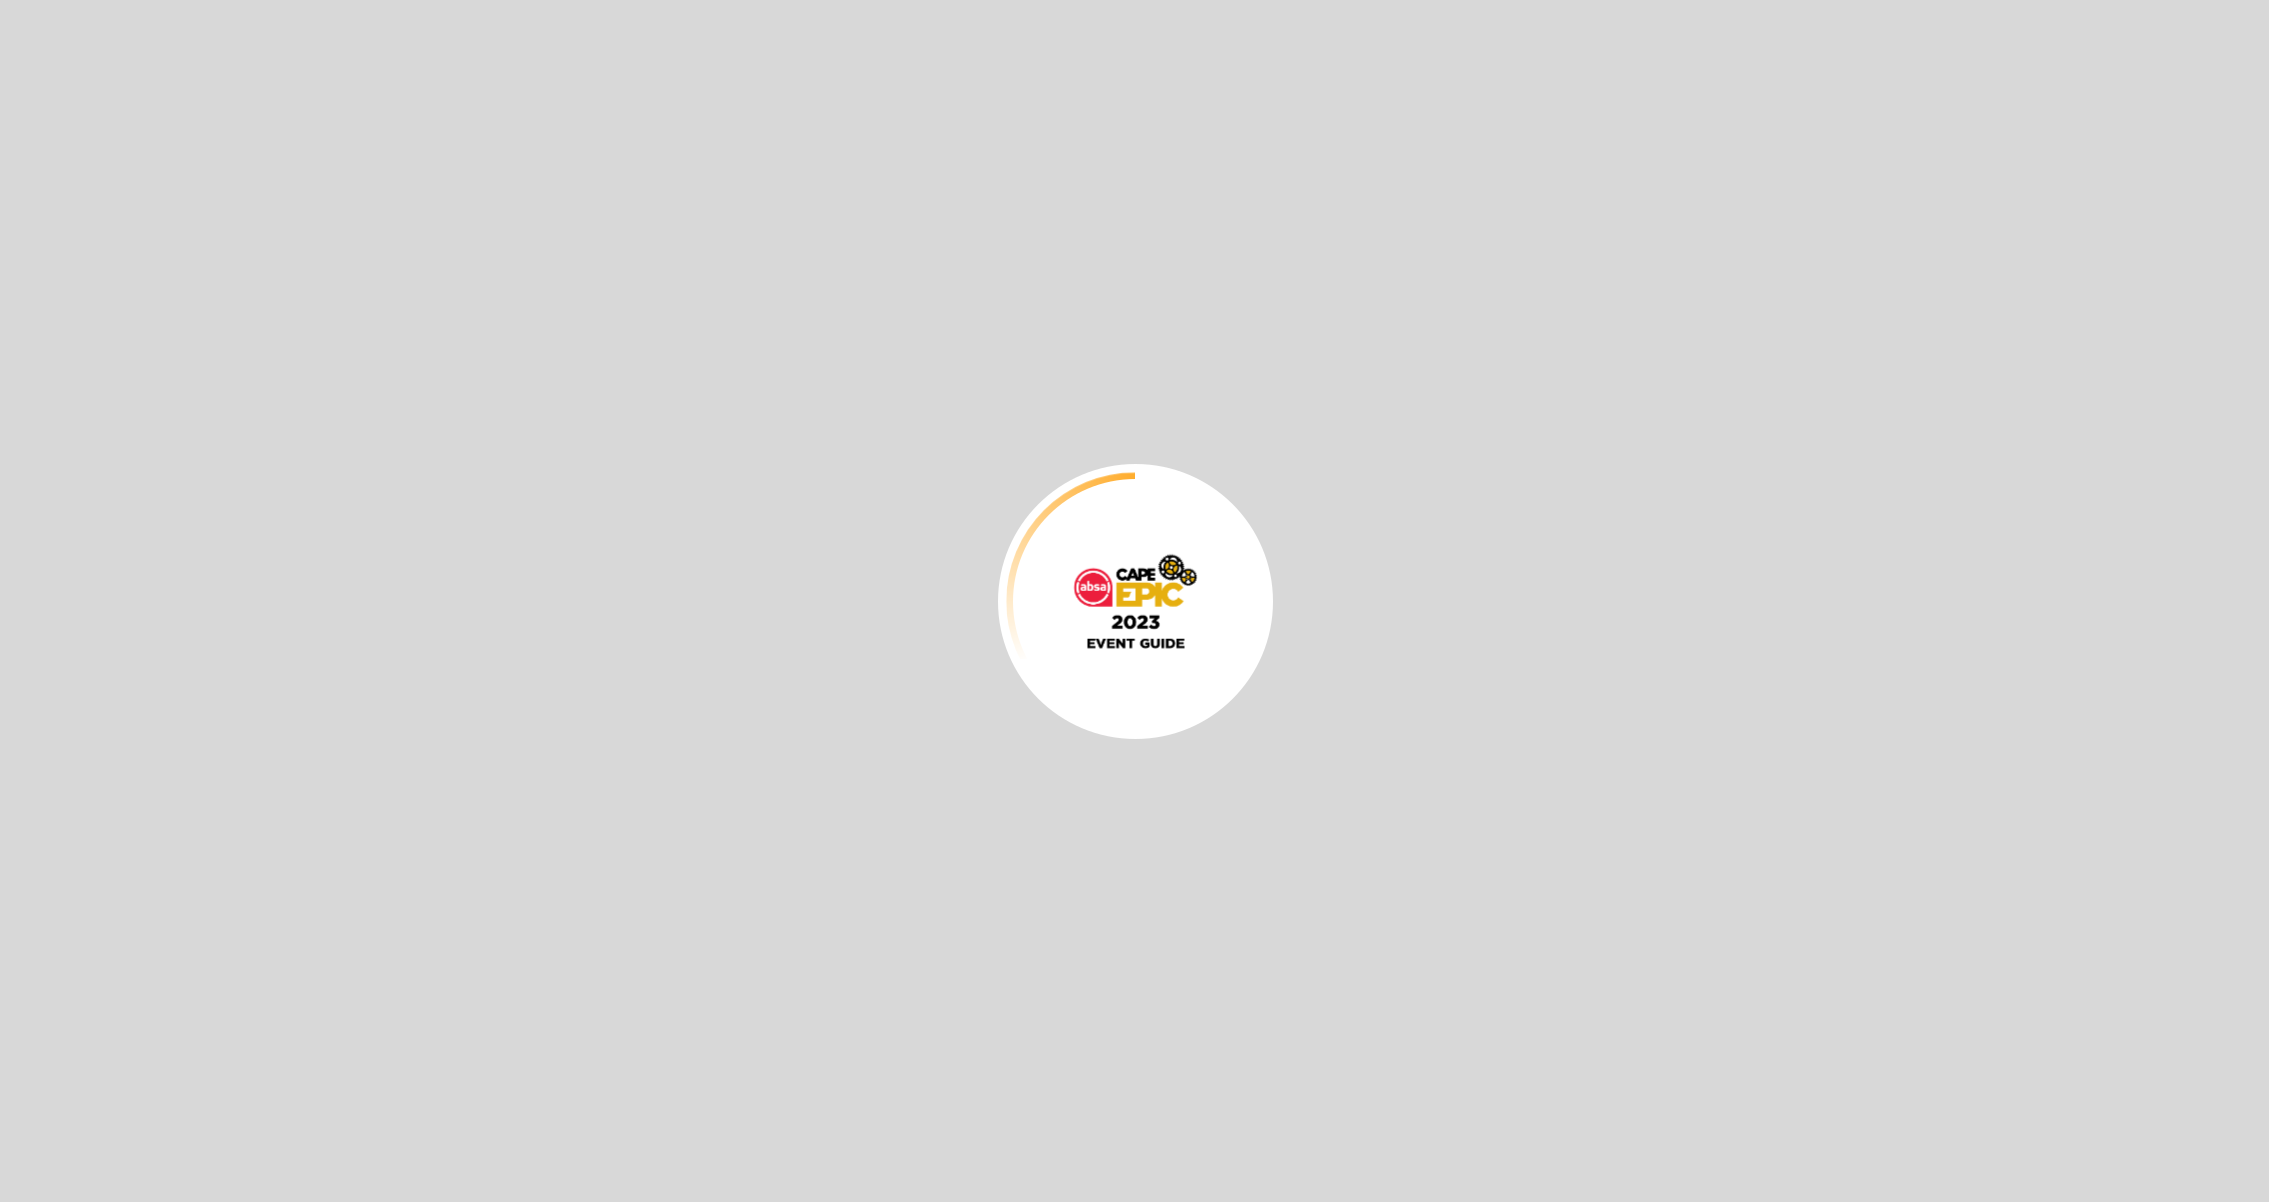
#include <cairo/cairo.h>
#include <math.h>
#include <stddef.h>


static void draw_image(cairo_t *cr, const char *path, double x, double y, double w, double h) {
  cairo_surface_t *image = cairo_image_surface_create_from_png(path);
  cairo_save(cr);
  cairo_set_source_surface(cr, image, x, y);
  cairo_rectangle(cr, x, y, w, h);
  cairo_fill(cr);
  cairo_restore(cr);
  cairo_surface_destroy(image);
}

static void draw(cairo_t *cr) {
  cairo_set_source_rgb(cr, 216 / 255.0, 216 / 255.0, 216 / 255.0);
  cairo_paint(cr);
  cairo_set_source_rgb(cr, 1, 1, 1);
  cairo_arc(cr, 1135.5, 601.5, 137.5, 0, 2 * M_PI);
  cairo_fill(cr);
  draw_image(cr, "images/1.png", 1006, 472, 129, 187);
  cairo_arc(cr, 1135.5, 601.5, 122.5, 0, 2 * M_PI);
  cairo_fill(cr);
  draw_image(cr, "images/2.png", 1073, 553, 125, 96);
}

int main(void) {
  cairo_surface_t *surface = cairo_image_surface_create(CAIRO_FORMAT_RGB24, 2269, 1202);
  cairo_t *cr = cairo_create(surface);
  cairo_font_options_t *options = cairo_font_options_create();
  cairo_font_options_set_hint_metrics(options, CAIRO_HINT_METRICS_OFF);
  cairo_font_options_set_hint_style(options, CAIRO_HINT_STYLE_NONE);
  cairo_set_font_options(cr, options);
  cairo_set_miter_limit(cr, 4);
  draw(cr);
  cairo_surface_write_to_png(surface, "out.png");
  cairo_font_options_destroy(options);
  cairo_destroy(cr);
  cairo_surface_destroy(surface);
  return 0;
}
